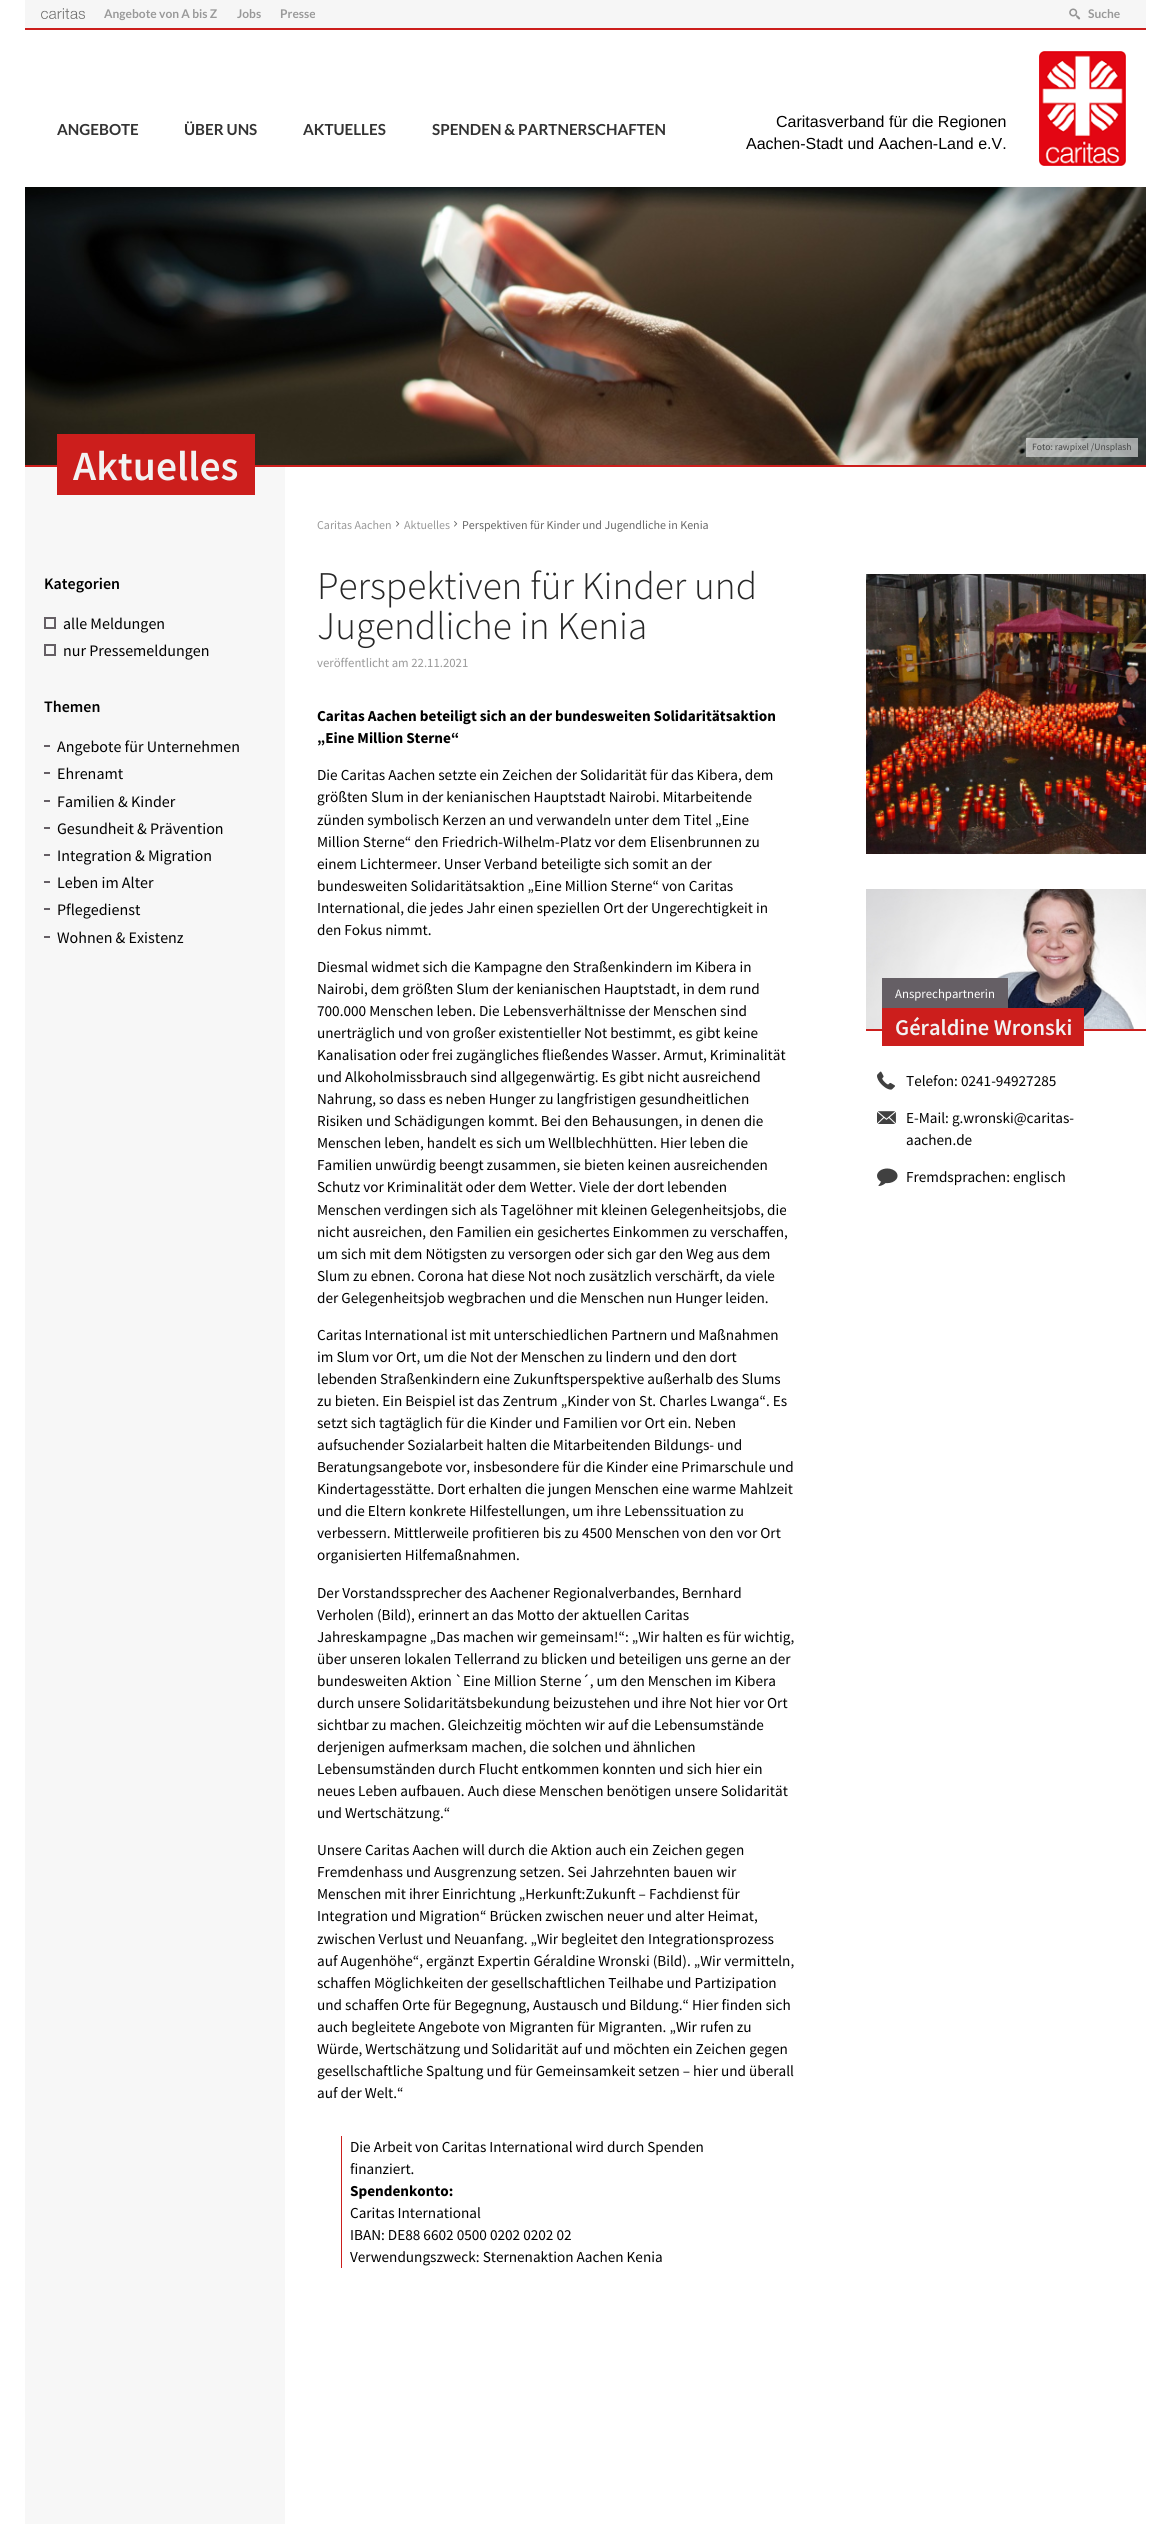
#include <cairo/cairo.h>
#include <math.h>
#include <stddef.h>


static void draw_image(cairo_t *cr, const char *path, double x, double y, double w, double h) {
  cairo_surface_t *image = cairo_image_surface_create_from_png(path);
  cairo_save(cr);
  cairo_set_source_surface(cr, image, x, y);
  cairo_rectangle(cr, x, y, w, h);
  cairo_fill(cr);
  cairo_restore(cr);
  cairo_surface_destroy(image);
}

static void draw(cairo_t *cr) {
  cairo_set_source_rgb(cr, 1, 1, 1);
  cairo_paint(cr);
  cairo_set_source_rgb(cr, 246 / 255.0, 246 / 255.0, 246 / 255.0);
  cairo_rectangle(cr, 25, 0, 1121, 28);
  cairo_fill(cr);
  cairo_set_source_rgb(cr, 204 / 255.0, 30 / 255.0, 28 / 255.0);
  cairo_rectangle(cr, 25, 28, 1121, 2);
  cairo_fill(cr);
  draw_image(cr, "images/1.png", 41, 8, 44, 11);
  draw_image(cr, "images/2.png", 1069, 8, 12, 12);
  draw_image(cr, "images/3.png", 1039, 51, 87, 115);
  draw_image(cr, "images/4.png", 25, 187, 1121, 278);
  cairo_rectangle(cr, 25, 465, 1121, 2);
  cairo_fill(cr);
  cairo_set_source_rgba(cr, 1, 1, 1, 0.55);
  cairo_rectangle(cr, 1026, 438, 112, 19);
  cairo_fill(cr);
  cairo_set_source_rgb(cr, 247 / 255.0, 247 / 255.0, 247 / 255.0);
  cairo_rectangle(cr, 25, 467, 260, 2057);
  cairo_fill(cr);
  cairo_set_source_rgb(cr, 204 / 255.0, 30 / 255.0, 28 / 255.0);
  cairo_rectangle(cr, 57, 434, 16, 61);
  cairo_fill(cr);
  cairo_rectangle(cr, 73, 434, 182, 61);
  cairo_fill(cr);
  cairo_rectangle(cr, 45, 618, 10, 10);
  cairo_set_source_rgb(cr, 101 / 255.0, 95 / 255.0, 101 / 255.0);
  cairo_stroke(cr);
  cairo_rectangle(cr, 45, 645, 10, 10);
  cairo_stroke(cr);
  cairo_rectangle(cr, 44, 745, 6, 2);
  cairo_fill(cr);
  cairo_rectangle(cr, 44, 772, 6, 2);
  cairo_fill(cr);
  cairo_rectangle(cr, 44, 800, 6, 2);
  cairo_fill(cr);
  cairo_rectangle(cr, 44, 827, 6, 2);
  cairo_fill(cr);
  cairo_rectangle(cr, 44, 854, 6, 2);
  cairo_fill(cr);
  cairo_rectangle(cr, 44, 881, 6, 2);
  cairo_fill(cr);
  cairo_rectangle(cr, 44, 908, 6, 2);
  cairo_fill(cr);
  cairo_rectangle(cr, 44, 936, 6, 2);
  cairo_fill(cr);
  draw_image(cr, "images/5.png", 396, 521, 4, 6);
  draw_image(cr, "images/5.png", 454, 521, 4, 6);
  cairo_set_source_rgb(cr, 204 / 255.0, 30 / 255.0, 28 / 255.0);
  cairo_rectangle(cr, 341, 2136, 1, 132);
  cairo_fill(cr);
  draw_image(cr, "images/6.png", 866, 574, 280, 280);
  cairo_rectangle(cr, 866, 1029, 280, 2);
  cairo_fill(cr);
  draw_image(cr, "images/7.png", 866, 889, 280, 140);
  cairo_set_source_rgb(cr, 101 / 255.0, 95 / 255.0, 101 / 255.0);
  cairo_rectangle(cr, 882, 978, 126, 30);
  cairo_fill(cr);
  cairo_set_source_rgb(cr, 204 / 255.0, 30 / 255.0, 28 / 255.0);
  cairo_rectangle(cr, 882, 1008, 13, 38);
  cairo_fill(cr);
  cairo_rectangle(cr, 895, 1008, 189, 38);
  cairo_fill(cr);
  draw_image(cr, "images/8.png", 877, 1071, 18, 19);
  draw_image(cr, "images/9.png", 877, 1111, 19, 13);
  draw_image(cr, "images/10.png", 877, 1168, 21, 18);
  cairo_select_font_face(cr, "Lato", CAIRO_FONT_SLANT_NORMAL, CAIRO_FONT_WEIGHT_BOLD);
  cairo_set_font_size(cr, 12);
  cairo_set_source_rgb(cr, 153 / 255.0, 153 / 255.0, 153 / 255.0);
  cairo_move_to(cr, 104, 18);
  cairo_show_text(cr, "Angebote von A bis Z");
  cairo_move_to(cr, 237, 18);
  cairo_show_text(cr, "Jobs");
  cairo_move_to(cr, 280, 18);
  cairo_show_text(cr, "Presse");
  cairo_move_to(cr, 1088, 18);
  cairo_show_text(cr, "Suche");
  cairo_set_font_size(cr, 15.2);
  cairo_set_source_rgb(cr, 51 / 255.0, 51 / 255.0, 51 / 255.0);
  cairo_move_to(cr, 57, 135);
  cairo_show_text(cr, "ANGEBOTE");
  cairo_move_to(cr, 184, 135);
  cairo_show_text(cr, "ÜBER UNS");
  cairo_move_to(cr, 303, 135);
  cairo_show_text(cr, "AKTUELLES");
  cairo_move_to(cr, 432, 135);
  cairo_show_text(cr, "SPENDEN & PARTNERSCHAFTEN");
  cairo_select_font_face(cr, "Liberation Sans", CAIRO_FONT_SLANT_NORMAL, CAIRO_FONT_WEIGHT_NORMAL);
  cairo_set_font_size(cr, 16);
  cairo_set_source_rgb(cr, 0, 0, 0);
  cairo_move_to(cr, 776, 127);
  cairo_show_text(cr, "Caritasverband für die Regionen");
  cairo_move_to(cr, 746, 149);
  cairo_show_text(cr, "Aachen-Stadt und Aachen-Land e.V.");
  cairo_select_font_face(cr, "Source Sans Pro", CAIRO_FONT_SLANT_NORMAL, CAIRO_FONT_WEIGHT_NORMAL);
  cairo_set_font_size(cr, 9.6);
  cairo_set_source_rgb(cr, 70 / 255.0, 71 / 255.0, 70 / 255.0);
  cairo_move_to(cr, 1032, 450);
  cairo_show_text(cr, "Foto: rawpixel /Unsplash");
  cairo_select_font_face(cr, "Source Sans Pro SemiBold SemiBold", CAIRO_FONT_SLANT_NORMAL, CAIRO_FONT_WEIGHT_NORMAL);
  cairo_set_font_size(cr, 41.5);
  cairo_set_source_rgb(cr, 242 / 255.0, 242 / 255.0, 242 / 255.0);
  cairo_move_to(cr, 73, 480);
  cairo_show_text(cr, "Aktuelles");
  cairo_set_font_size(cr, 16);
  cairo_set_source_rgb(cr, 0, 0, 0);
  cairo_move_to(cr, 44, 589);
  cairo_show_text(cr, "Kategorien");
  cairo_select_font_face(cr, "Source Sans Pro", CAIRO_FONT_SLANT_NORMAL, CAIRO_FONT_WEIGHT_NORMAL);
  cairo_move_to(cr, 63, 629);
  cairo_show_text(cr, "alle Meldungen");
  cairo_move_to(cr, 63, 656);
  cairo_show_text(cr, "nur Pressemeldungen");
  cairo_select_font_face(cr, "Source Sans Pro SemiBold SemiBold", CAIRO_FONT_SLANT_NORMAL, CAIRO_FONT_WEIGHT_NORMAL);
  cairo_move_to(cr, 44, 712);
  cairo_show_text(cr, "Themen");
  cairo_select_font_face(cr, "Source Sans Pro", CAIRO_FONT_SLANT_NORMAL, CAIRO_FONT_WEIGHT_NORMAL);
  cairo_move_to(cr, 57, 752);
  cairo_show_text(cr, "Angebote für Unternehmen");
  cairo_move_to(cr, 57, 779);
  cairo_show_text(cr, "Ehrenamt");
  cairo_move_to(cr, 57, 807);
  cairo_show_text(cr, "Familien & Kinder");
  cairo_move_to(cr, 57, 834);
  cairo_show_text(cr, "Gesundheit & Prävention");
  cairo_move_to(cr, 57, 861);
  cairo_show_text(cr, "Integration & Migration");
  cairo_move_to(cr, 57, 888);
  cairo_show_text(cr, "Leben im Alter");
  cairo_move_to(cr, 57, 915);
  cairo_show_text(cr, "Pflegedienst");
  cairo_move_to(cr, 57, 943);
  cairo_show_text(cr, "Wohnen & Existenz");
  cairo_set_font_size(cr, 12);
  cairo_set_source_rgb(cr, 153 / 255.0, 153 / 255.0, 153 / 255.0);
  cairo_move_to(cr, 317, 529);
  cairo_show_text(cr, "Caritas Aachen");
  cairo_move_to(cr, 404, 529);
  cairo_show_text(cr, "Aktuelles");
  cairo_set_source_rgb(cr, 102 / 255.0, 102 / 255.0, 102 / 255.0);
  cairo_move_to(cr, 462, 529);
  cairo_show_text(cr, "Perspektiven für Kinder und Jugendliche in Kenia");
  cairo_select_font_face(cr, "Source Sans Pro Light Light", CAIRO_FONT_SLANT_NORMAL, CAIRO_FONT_WEIGHT_NORMAL);
  cairo_set_font_size(cr, 39.25);
  cairo_set_source_rgb(cr, 38 / 255.0, 38 / 255.0, 38 / 255.0);
  cairo_move_to(cr, 317, 599);
  cairo_show_text(cr, "Perspektiven für Kinder und");
  cairo_move_to(cr, 317, 639);
  cairo_show_text(cr, "Jugendliche in Kenia");
  cairo_select_font_face(cr, "Source Sans Pro", CAIRO_FONT_SLANT_NORMAL, CAIRO_FONT_WEIGHT_NORMAL);
  cairo_set_font_size(cr, 12.75);
  cairo_set_source_rgb(cr, 153 / 255.0, 153 / 255.0, 153 / 255.0);
  cairo_move_to(cr, 317, 667);
  cairo_show_text(cr, "veröffentlicht am 22.11.2021");
  cairo_select_font_face(cr, "Source Sans Pro", CAIRO_FONT_SLANT_NORMAL, CAIRO_FONT_WEIGHT_BOLD);
  cairo_set_font_size(cr, 15.2);
  cairo_set_source_rgb(cr, 0, 0, 0);
  cairo_move_to(cr, 317, 721);
  cairo_show_text(cr, "Caritas Aachen beteiligt sich an der bundesweiten Solidaritätsaktion");
  cairo_move_to(cr, 317, 743);
  cairo_show_text(cr, "„Eine Million Sterne“");
  cairo_select_font_face(cr, "Source Sans Pro", CAIRO_FONT_SLANT_NORMAL, CAIRO_FONT_WEIGHT_NORMAL);
  cairo_move_to(cr, 317, 780);
  cairo_show_text(cr, "Die Caritas Aachen setzte ein Zeichen der Solidarität für das Kibera, dem");
  cairo_move_to(cr, 317, 802);
  cairo_show_text(cr, "größten Slum in der kenianischen Hauptstadt Nairobi. Mitarbeitende");
  cairo_move_to(cr, 317, 825);
  cairo_show_text(cr, "zünden symbolisch Kerzen an und verwandeln unter dem Titel „Eine");
  cairo_move_to(cr, 317, 847);
  cairo_show_text(cr, "Million Sterne“ den Friedrich-Wilhelm-Platz vor dem Elisenbrunnen zu");
  cairo_move_to(cr, 317, 869);
  cairo_show_text(cr, "einem Lichtermeer. Unser Verband beteiligte sich somit an der");
  cairo_move_to(cr, 317, 891);
  cairo_show_text(cr, "bundesweiten Solidaritätsaktion „Eine Million Sterne“ von Caritas");
  cairo_move_to(cr, 317, 913);
  cairo_show_text(cr, "International, die jedes Jahr einen speziellen Ort der Ungerechtigkeit in");
  cairo_move_to(cr, 317, 935);
  cairo_show_text(cr, "den Fokus nimmt.");
  cairo_move_to(cr, 317, 972);
  cairo_show_text(cr, "Diesmal widmet sich die Kampagne den Straßenkindern im Kibera in");
  cairo_move_to(cr, 317, 994);
  cairo_show_text(cr, "Nairobi, dem größten Slum der kenianischen Hauptstadt, in dem rund");
  cairo_move_to(cr, 317, 1016);
  cairo_show_text(cr, "700.000 Menschen leben. Die Lebensverhältnisse der Menschen sind");
  cairo_move_to(cr, 317, 1038);
  cairo_show_text(cr, "unerträglich und von großer existentieller Not bestimmt, es gibt keine");
  cairo_move_to(cr, 317, 1060);
  cairo_show_text(cr, "Kanalisation oder frei zugängliches fließendes Wasser. Armut, Kriminalität");
  cairo_move_to(cr, 317, 1082);
  cairo_show_text(cr, "und Alkoholmissbrauch sind allgegenwärtig. Es gibt nicht ausreichend");
  cairo_move_to(cr, 317, 1104);
  cairo_show_text(cr, "Nahrung, so dass es neben Hunger zu langfristigen gesundheitlichen");
  cairo_move_to(cr, 317, 1126);
  cairo_show_text(cr, "Risiken und Schädigungen kommt. Bei den Behausungen, in denen die");
  cairo_move_to(cr, 317, 1148);
  cairo_show_text(cr, "Menschen leben, handelt es sich um Wellblechhütten. Hier leben die");
  cairo_move_to(cr, 317, 1170);
  cairo_show_text(cr, "Familien unwürdig beengt zusammen, sie bieten keinen ausreichenden");
  cairo_move_to(cr, 317, 1192);
  cairo_show_text(cr, "Schutz vor Kriminalität oder dem Wetter. Viele der dort lebenden");
  cairo_move_to(cr, 317, 1215);
  cairo_show_text(cr, "Menschen verdingen sich als Tagelöhner mit kleinen Gelegenheitsjobs, die");
  cairo_move_to(cr, 317, 1237);
  cairo_show_text(cr, "nicht ausreichen, den Familien ein gesichertes Einkommen zu verschaffen,");
  cairo_move_to(cr, 317, 1259);
  cairo_show_text(cr, "um sich mit dem Nötigsten zu versorgen oder sich gar den Weg aus dem");
  cairo_move_to(cr, 317, 1281);
  cairo_show_text(cr, "Slum zu ebnen. Corona hat diese Not noch zusätzlich verschärft, da viele");
  cairo_move_to(cr, 317, 1303);
  cairo_show_text(cr, "der Gelegenheitsjob wegbrachen und die Menschen nun Hunger leiden.");
  cairo_move_to(cr, 317, 1340);
  cairo_show_text(cr, "Caritas International ist mit unterschiedlichen Partnern und Maßnahmen");
  cairo_move_to(cr, 317, 1362);
  cairo_show_text(cr, "im Slum vor Ort, um die Not der Menschen zu lindern und den dort");
  cairo_move_to(cr, 317, 1384);
  cairo_show_text(cr, "lebenden Straßenkindern eine Zukunftsperspektive außerhalb des Slums");
  cairo_move_to(cr, 317, 1406);
  cairo_show_text(cr, "zu bieten. Ein Beispiel ist das Zentrum „Kinder von St. Charles Lwanga“. Es");
  cairo_move_to(cr, 317, 1428);
  cairo_show_text(cr, "setzt sich tagtäglich für die Kinder und Familien vor Ort ein. Neben");
  cairo_move_to(cr, 317, 1450);
  cairo_show_text(cr, "aufsuchender Sozialarbeit halten die Mitarbeitenden Bildungs- und");
  cairo_move_to(cr, 317, 1472);
  cairo_show_text(cr, "Beratungsangebote vor, insbesondere für die Kinder eine Primarschule und");
  cairo_move_to(cr, 317, 1494);
  cairo_show_text(cr, "Kindertagesstätte. Dort erhalten die jungen Menschen eine warme Mahlzeit");
  cairo_move_to(cr, 317, 1516);
  cairo_show_text(cr, "und die Eltern konkrete Hilfestellungen, um ihre Lebenssituation zu");
  cairo_move_to(cr, 317, 1538);
  cairo_show_text(cr, "verbessern. Mittlerweile profitieren bis zu 4500 Menschen von den vor Ort");
  cairo_move_to(cr, 317, 1560);
  cairo_show_text(cr, "organisierten Hilfemaßnahmen.");
  cairo_move_to(cr, 317, 1598);
  cairo_show_text(cr, "Der Vorstandssprecher des Aachener Regionalverbandes, Bernhard");
  cairo_move_to(cr, 317, 1620);
  cairo_show_text(cr, "Verholen (Bild), erinnert an das Motto der aktuellen Caritas");
  cairo_move_to(cr, 317, 1642);
  cairo_show_text(cr, "Jahreskampagne „Das machen wir gemeinsam!“: „Wir halten es für wichtig,");
  cairo_move_to(cr, 317, 1664);
  cairo_show_text(cr, "über unseren lokalen Tellerrand zu blicken und beteiligen uns gerne an der");
  cairo_move_to(cr, 317, 1686);
  cairo_show_text(cr, "bundesweiten Aktion `Eine Million Sterne´, um den Menschen im Kibera");
  cairo_move_to(cr, 317, 1708);
  cairo_show_text(cr, "durch unsere Solidaritätsbekundung beizustehen und ihre Not hier vor Ort");
  cairo_move_to(cr, 317, 1730);
  cairo_show_text(cr, "sichtbar zu machen. Gleichzeitig möchten wir auf die Lebensumstände");
  cairo_move_to(cr, 317, 1752);
  cairo_show_text(cr, "derjenigen aufmerksam machen, die solchen und ähnlichen");
  cairo_move_to(cr, 317, 1774);
  cairo_show_text(cr, "Lebensumständen durch Flucht entkommen konnten und sich hier ein");
  cairo_move_to(cr, 317, 1796);
  cairo_show_text(cr, "neues Leben aufbauen. Auch diese Menschen benötigen unsere Solidarität");
  cairo_move_to(cr, 317, 1818);
  cairo_show_text(cr, "und Wertschätzung.“");
  cairo_move_to(cr, 317, 1855);
  cairo_show_text(cr, "Unsere Caritas Aachen will durch die Aktion auch ein Zeichen gegen");
  cairo_move_to(cr, 317, 1877);
  cairo_show_text(cr, "Fremdenhass und Ausgrenzung setzen. Sei Jahrzehnten bauen wir");
  cairo_move_to(cr, 317, 1899);
  cairo_show_text(cr, "Menschen mit ihrer Einrichtung „Herkunft:Zukunft – Fachdienst für");
  cairo_move_to(cr, 317, 1921);
  cairo_show_text(cr, "Integration und Migration“ Brücken zwischen neuer und alter Heimat,");
  cairo_move_to(cr, 317, 1944);
  cairo_show_text(cr, "zwischen Verlust und Neuanfang. „Wir begleitet den Integrationsprozess");
  cairo_move_to(cr, 317, 1966);
  cairo_show_text(cr, "auf Augenhöhe“, ergänzt Expertin Géraldine Wronski (Bild). „Wir vermitteln,");
  cairo_move_to(cr, 317, 1988);
  cairo_show_text(cr, "schaffen Möglichkeiten der gesellschaftlichen Teilhabe und Partizipation");
  cairo_move_to(cr, 317, 2010);
  cairo_show_text(cr, "und schaffen Orte für Begegnung, Austausch und Bildung.“ Hier finden sich");
  cairo_move_to(cr, 317, 2032);
  cairo_show_text(cr, "auch begleitete Angebote von Migranten für Migranten. „Wir rufen zu");
  cairo_move_to(cr, 317, 2054);
  cairo_show_text(cr, "Würde, Wertschätzung und Solidarität auf und möchten ein Zeichen gegen");
  cairo_move_to(cr, 317, 2076);
  cairo_show_text(cr, "gesellschaftliche Spaltung und für Gemeinsamkeit setzen – hier und überall");
  cairo_move_to(cr, 317, 2098);
  cairo_show_text(cr, "auf der Welt.“");
  cairo_move_to(cr, 350, 2152);
  cairo_show_text(cr, "Die Arbeit von Caritas International wird durch Spenden");
  cairo_move_to(cr, 350, 2174);
  cairo_show_text(cr, "finanziert.");
  cairo_select_font_face(cr, "Source Sans Pro", CAIRO_FONT_SLANT_NORMAL, CAIRO_FONT_WEIGHT_BOLD);
  cairo_move_to(cr, 350, 2196);
  cairo_show_text(cr, "Spendenkonto:");
  cairo_select_font_face(cr, "Source Sans Pro", CAIRO_FONT_SLANT_NORMAL, CAIRO_FONT_WEIGHT_NORMAL);
  cairo_move_to(cr, 350, 2218);
  cairo_show_text(cr, "Caritas International");
  cairo_move_to(cr, 350, 2240);
  cairo_show_text(cr, "IBAN: DE88 6602 0500 0202 0202 02");
  cairo_move_to(cr, 350, 2262);
  cairo_show_text(cr, "Verwendungszweck: Sternenaktion Aachen Kenia");
  cairo_set_font_size(cr, 12.75);
  cairo_set_source_rgb(cr, 1, 1, 1);
  cairo_move_to(cr, 895, 998);
  cairo_show_text(cr, "Ansprechpartnerin");
  cairo_select_font_face(cr, "Source Sans Pro SemiBold SemiBold", CAIRO_FONT_SLANT_NORMAL, CAIRO_FONT_WEIGHT_NORMAL);
  cairo_set_font_size(cr, 22.5);
  cairo_set_source_rgb(cr, 242 / 255.0, 242 / 255.0, 242 / 255.0);
  cairo_move_to(cr, 895, 1035);
  cairo_show_text(cr, "Géraldine Wronski");
  cairo_select_font_face(cr, "Source Sans Pro", CAIRO_FONT_SLANT_NORMAL, CAIRO_FONT_WEIGHT_NORMAL);
  cairo_set_font_size(cr, 15.2);
  cairo_set_source_rgb(cr, 0, 0, 0);
  cairo_move_to(cr, 906, 1086);
  cairo_show_text(cr, "Telefon: 0241-94927285");
  cairo_move_to(cr, 906, 1123);
  cairo_show_text(cr, "E-Mail: g.wronski@caritas-");
  cairo_move_to(cr, 906, 1145);
  cairo_show_text(cr, "aachen.de");
  cairo_move_to(cr, 906, 1182);
  cairo_show_text(cr, "Fremdsprachen: englisch");
}

int main(void) {
  cairo_surface_t *surface = cairo_image_surface_create(CAIRO_FORMAT_RGB24, 1171, 2524);
  cairo_t *cr = cairo_create(surface);
  cairo_font_options_t *options = cairo_font_options_create();
  cairo_font_options_set_hint_metrics(options, CAIRO_HINT_METRICS_OFF);
  cairo_font_options_set_hint_style(options, CAIRO_HINT_STYLE_NONE);
  cairo_set_font_options(cr, options);
  cairo_set_miter_limit(cr, 4);
  draw(cr);
  cairo_surface_write_to_png(surface, "out.png");
  cairo_font_options_destroy(options);
  cairo_destroy(cr);
  cairo_surface_destroy(surface);
  return 0;
}
